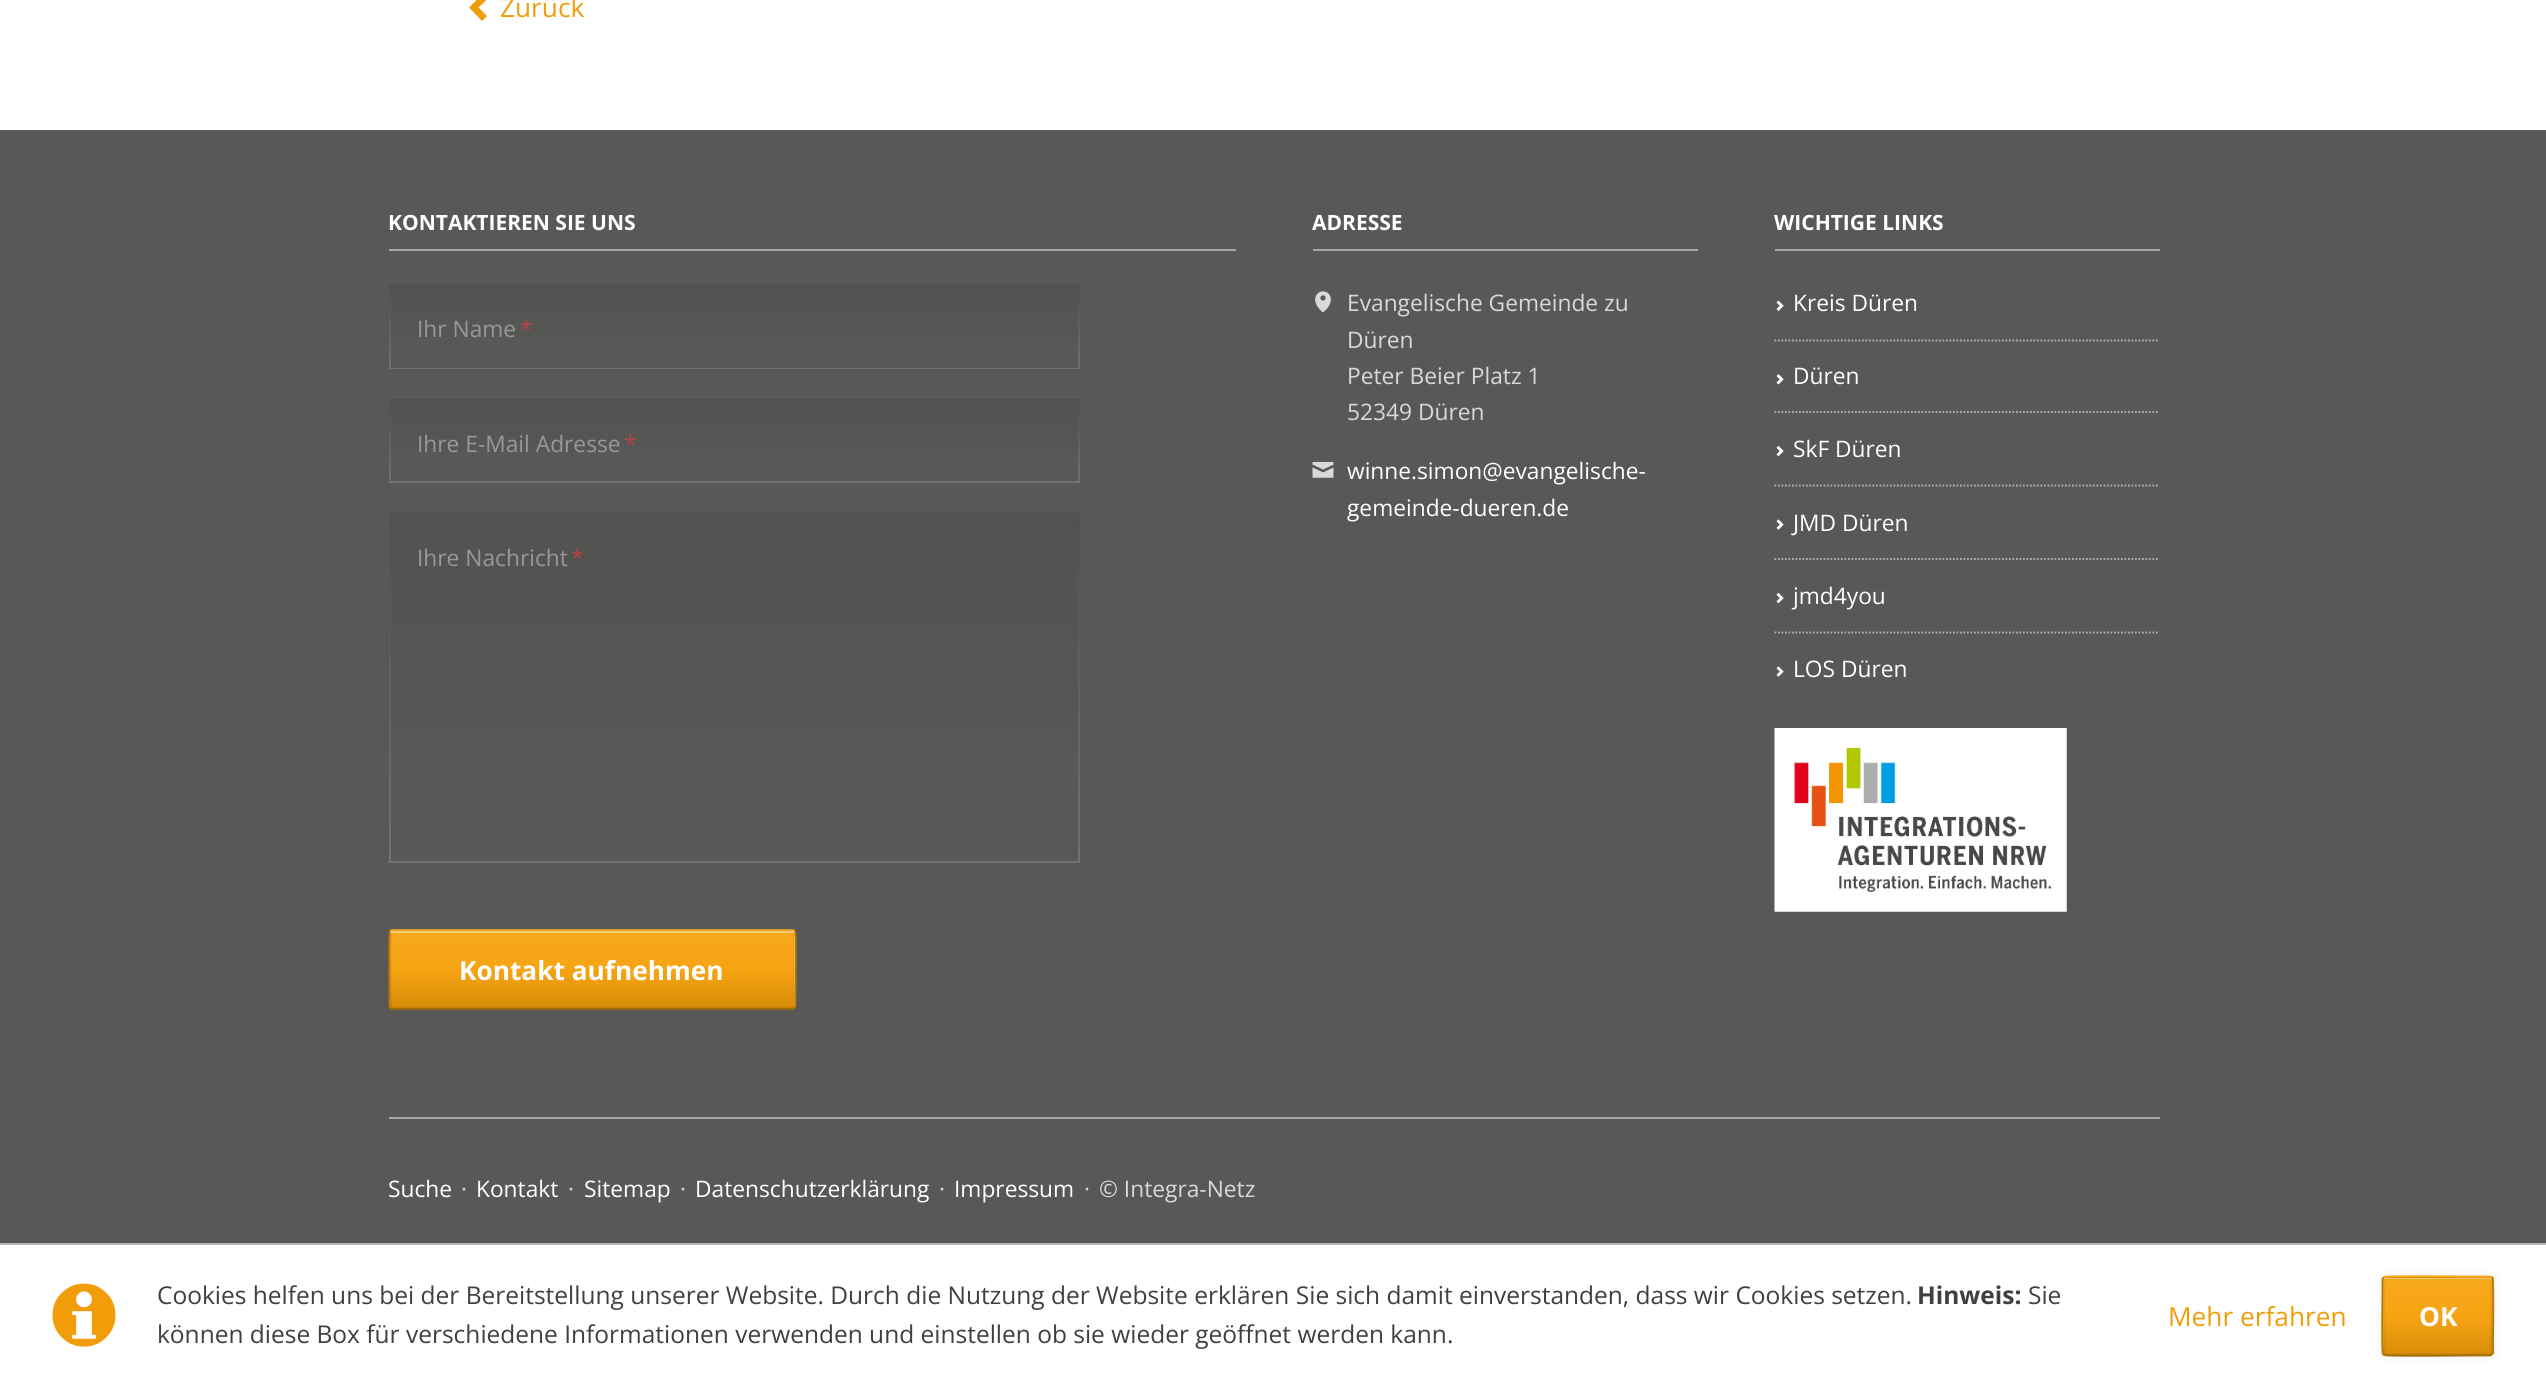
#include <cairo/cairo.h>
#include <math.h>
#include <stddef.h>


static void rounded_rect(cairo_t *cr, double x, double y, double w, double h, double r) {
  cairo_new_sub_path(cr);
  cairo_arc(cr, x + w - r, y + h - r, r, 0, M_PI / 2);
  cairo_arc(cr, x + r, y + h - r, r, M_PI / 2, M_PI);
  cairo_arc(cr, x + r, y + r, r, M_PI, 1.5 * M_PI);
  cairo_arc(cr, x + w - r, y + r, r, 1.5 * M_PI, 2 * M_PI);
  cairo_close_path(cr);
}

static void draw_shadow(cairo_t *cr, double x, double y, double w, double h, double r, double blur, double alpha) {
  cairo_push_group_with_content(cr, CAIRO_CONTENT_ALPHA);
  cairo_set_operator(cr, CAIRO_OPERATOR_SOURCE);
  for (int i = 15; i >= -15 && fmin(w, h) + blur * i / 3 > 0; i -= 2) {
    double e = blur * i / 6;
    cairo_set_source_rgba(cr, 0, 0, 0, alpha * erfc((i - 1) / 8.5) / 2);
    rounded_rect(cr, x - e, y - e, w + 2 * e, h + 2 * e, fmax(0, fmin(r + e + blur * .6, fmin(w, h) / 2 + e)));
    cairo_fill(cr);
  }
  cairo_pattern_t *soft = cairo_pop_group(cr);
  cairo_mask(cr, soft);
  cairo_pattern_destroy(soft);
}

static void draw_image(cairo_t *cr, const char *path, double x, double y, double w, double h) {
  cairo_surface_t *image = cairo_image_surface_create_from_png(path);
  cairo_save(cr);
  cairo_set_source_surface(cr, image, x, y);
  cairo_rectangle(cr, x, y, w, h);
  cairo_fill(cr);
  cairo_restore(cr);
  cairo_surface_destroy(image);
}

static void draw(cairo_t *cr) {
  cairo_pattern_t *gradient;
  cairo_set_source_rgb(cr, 1, 1, 1);
  cairo_paint(cr);
  cairo_set_source_rgb(cr, 241 / 255.0, 157 / 255.0, 9 / 255.0);
  cairo_new_path(cr);
  cairo_move_to(cr, 482, 21);
  cairo_line_to(cr, 487, 16);
  cairo_line_to(cr, 478.5, 7.5);
  cairo_line_to(cr, 487, -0.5);
  cairo_line_to(cr, 482, -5.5);
  cairo_line_to(cr, 469, 7.5);
  cairo_close_path(cr);
  cairo_fill(cr);
  cairo_set_source_rgb(cr, 89 / 255.0, 88 / 255.0, 86 / 255.0);
  cairo_rectangle(cr, 0, 130, 2546, 1113);
  cairo_fill(cr);
  cairo_set_source_rgb(cr, 165 / 255.0, 165 / 255.0, 165 / 255.0);
  cairo_rectangle(cr, 389, 249, 847, 2);
  cairo_fill(cr);
  gradient = cairo_pattern_create_linear(734, 285, 734, 369);
  cairo_pattern_add_color_stop_rgba(gradient, 0, 83 / 255.0, 82 / 255.0, 80 / 255.0, 1);
  cairo_pattern_add_color_stop_rgba(gradient, 0.5, 86 / 255.0, 86 / 255.0, 84 / 255.0, 1);
  cairo_pattern_add_color_stop_rgba(gradient, 1, 88 / 255.0, 87 / 255.0, 85 / 255.0, 1);
  cairo_set_source(cr, gradient);
  cairo_pattern_destroy(gradient);
  cairo_rectangle(cr, 391, 287, 687, 50);
  cairo_fill(cr);
  gradient = cairo_pattern_create_linear(1079, 285, 1079, 369);
  cairo_pattern_add_color_stop_rgba(gradient, 0, 81 / 255.0, 80 / 255.0, 78 / 255.0, 1);
  cairo_pattern_add_color_stop_rgba(gradient, 1, 115 / 255.0, 114 / 255.0, 111 / 255.0, 1);
  cairo_set_source(cr, gradient);
  cairo_pattern_destroy(gradient);
  cairo_rectangle(cr, 1078, 285, 2, 84);
  cairo_fill(cr);
  gradient = cairo_pattern_create_linear(389, 285, 389, 369);
  cairo_pattern_add_color_stop_rgba(gradient, 0, 81 / 255.0, 80 / 255.0, 78 / 255.0, 1);
  cairo_pattern_add_color_stop_rgba(gradient, 1, 115 / 255.0, 114 / 255.0, 111 / 255.0, 1);
  cairo_set_source(cr, gradient);
  cairo_pattern_destroy(gradient);
  cairo_rectangle(cr, 389, 285, 2, 84);
  cairo_fill(cr);
  cairo_set_source_rgb(cr, 81 / 255.0, 80 / 255.0, 78 / 255.0);
  cairo_new_path(cr);
  cairo_move_to(cr, 388, 285);
  cairo_line_to(cr, 1080, 285);
  cairo_line_to(cr, 1078, 287);
  cairo_line_to(cr, 390, 287);
  cairo_close_path(cr);
  cairo_fill(cr);
  cairo_set_source_rgb(cr, 115 / 255.0, 114 / 255.0, 111 / 255.0);
  cairo_new_path(cr);
  cairo_move_to(cr, 1080, 369);
  cairo_line_to(cr, 388, 369);
  cairo_line_to(cr, 390, 368);
  cairo_line_to(cr, 1078, 368);
  cairo_close_path(cr);
  cairo_fill(cr);
  gradient = cairo_pattern_create_linear(734, 399, 734, 483);
  cairo_pattern_add_color_stop_rgba(gradient, 0, 83 / 255.0, 82 / 255.0, 80 / 255.0, 1);
  cairo_pattern_add_color_stop_rgba(gradient, 0.5, 86 / 255.0, 86 / 255.0, 84 / 255.0, 1);
  cairo_pattern_add_color_stop_rgba(gradient, 1, 88 / 255.0, 87 / 255.0, 85 / 255.0, 1);
  cairo_set_source(cr, gradient);
  cairo_pattern_destroy(gradient);
  cairo_rectangle(cr, 391, 401, 687, 50);
  cairo_fill(cr);
  gradient = cairo_pattern_create_linear(1079, 399, 1079, 483);
  cairo_pattern_add_color_stop_rgba(gradient, 0, 81 / 255.0, 80 / 255.0, 78 / 255.0, 1);
  cairo_pattern_add_color_stop_rgba(gradient, 1, 115 / 255.0, 114 / 255.0, 111 / 255.0, 1);
  cairo_set_source(cr, gradient);
  cairo_pattern_destroy(gradient);
  cairo_rectangle(cr, 1078, 399, 2, 84);
  cairo_fill(cr);
  gradient = cairo_pattern_create_linear(389, 399, 389, 483);
  cairo_pattern_add_color_stop_rgba(gradient, 0, 81 / 255.0, 80 / 255.0, 78 / 255.0, 1);
  cairo_pattern_add_color_stop_rgba(gradient, 1, 115 / 255.0, 114 / 255.0, 111 / 255.0, 1);
  cairo_set_source(cr, gradient);
  cairo_pattern_destroy(gradient);
  cairo_rectangle(cr, 389, 399, 2, 84);
  cairo_fill(cr);
  cairo_set_source_rgb(cr, 81 / 255.0, 80 / 255.0, 78 / 255.0);
  cairo_new_path(cr);
  cairo_move_to(cr, 388, 399);
  cairo_line_to(cr, 1080, 399);
  cairo_line_to(cr, 1078, 401);
  cairo_line_to(cr, 390, 401);
  cairo_close_path(cr);
  cairo_fill(cr);
  cairo_set_source_rgb(cr, 115 / 255.0, 114 / 255.0, 111 / 255.0);
  cairo_new_path(cr);
  cairo_move_to(cr, 1080, 483);
  cairo_line_to(cr, 388, 483);
  cairo_line_to(cr, 390, 481);
  cairo_line_to(cr, 1078, 481);
  cairo_close_path(cr);
  cairo_fill(cr);
  gradient = cairo_pattern_create_linear(734, 513, 734, 863);
  cairo_pattern_add_color_stop_rgba(gradient, 0, 83 / 255.0, 82 / 255.0, 80 / 255.0, 1);
  cairo_pattern_add_color_stop_rgba(gradient, 0.5, 86 / 255.0, 86 / 255.0, 84 / 255.0, 1);
  cairo_pattern_add_color_stop_rgba(gradient, 1, 88 / 255.0, 87 / 255.0, 85 / 255.0, 1);
  cairo_set_source(cr, gradient);
  cairo_pattern_destroy(gradient);
  cairo_rectangle(cr, 391, 514, 687, 218);
  cairo_fill(cr);
  gradient = cairo_pattern_create_linear(1079, 513, 1079, 863);
  cairo_pattern_add_color_stop_rgba(gradient, 0, 81 / 255.0, 80 / 255.0, 78 / 255.0, 1);
  cairo_pattern_add_color_stop_rgba(gradient, 1, 115 / 255.0, 114 / 255.0, 111 / 255.0, 1);
  cairo_set_source(cr, gradient);
  cairo_pattern_destroy(gradient);
  cairo_rectangle(cr, 1078, 513, 2, 350);
  cairo_fill(cr);
  gradient = cairo_pattern_create_linear(389, 513, 389, 863);
  cairo_pattern_add_color_stop_rgba(gradient, 0, 81 / 255.0, 80 / 255.0, 78 / 255.0, 1);
  cairo_pattern_add_color_stop_rgba(gradient, 1, 115 / 255.0, 114 / 255.0, 111 / 255.0, 1);
  cairo_set_source(cr, gradient);
  cairo_pattern_destroy(gradient);
  cairo_rectangle(cr, 389, 513, 2, 350);
  cairo_fill(cr);
  cairo_set_source_rgb(cr, 81 / 255.0, 80 / 255.0, 78 / 255.0);
  cairo_new_path(cr);
  cairo_move_to(cr, 388, 513);
  cairo_line_to(cr, 1080, 513);
  cairo_line_to(cr, 1078, 514);
  cairo_line_to(cr, 390, 514);
  cairo_close_path(cr);
  cairo_fill(cr);
  cairo_set_source_rgb(cr, 115 / 255.0, 114 / 255.0, 111 / 255.0);
  cairo_new_path(cr);
  cairo_move_to(cr, 1080, 863);
  cairo_line_to(cr, 388, 863);
  cairo_line_to(cr, 390, 861);
  cairo_line_to(cr, 1078, 861);
  cairo_close_path(cr);
  cairo_fill(cr);
  cairo_save(cr);
  rounded_rect(cr, 389, 929, 407, 81, 4);
  cairo_clip(cr);
  gradient = cairo_pattern_create_linear(592, 931, 592, 1008);
  cairo_pattern_add_color_stop_rgba(gradient, 0, 247 / 255.0, 168 / 255.0, 29 / 255.0, 1);
  cairo_pattern_add_color_stop_rgba(gradient, 0.5, 246 / 255.0, 164 / 255.0, 19 / 255.0, 1);
  cairo_pattern_add_color_stop_rgba(gradient, 1, 216 / 255.0, 141 / 255.0, 8 / 255.0, 1);
  cairo_set_source(cr, gradient);
  cairo_pattern_destroy(gradient);
  cairo_rectangle(cr, 389, 931, 407, 77);
  cairo_fill(cr);
  cairo_restore(cr);
  cairo_set_source_rgba(cr, 0, 0, 0, 0.05);
  cairo_new_path(cr);
  cairo_move_to(cr, 791, 1008);
  cairo_curve_to(cr, 798, 1008, 795, 1002, 795, 994);
  cairo_line_to(cr, 795, 945);
  cairo_curve_to(cr, 795, 937, 798, 931, 791, 931);
  cairo_curve_to(cr, 792, 931, 793, 932, 793, 933);
  cairo_line_to(cr, 793, 1006);
  cairo_curve_to(cr, 793, 1007, 792, 1008, 791, 1008);
  cairo_close_path(cr);
  cairo_fill(cr);
  cairo_new_path(cr);
  cairo_move_to(cr, 392, 931);
  cairo_curve_to(cr, 391, 931, 390, 932, 390, 933);
  cairo_line_to(cr, 390, 1006);
  cairo_curve_to(cr, 390, 1007, 391, 1008, 392, 1008);
  cairo_line_to(cr, 394, 1008);
  cairo_curve_to(cr, 393, 1008, 392, 1007, 392, 1006);
  cairo_line_to(cr, 392, 933);
  cairo_curve_to(cr, 392, 932, 393, 931, 394, 931);
  cairo_close_path(cr);
  cairo_fill(cr);
  cairo_new_path(cr);
  cairo_move_to(cr, 390, 1004);
  cairo_line_to(cr, 390, 1006);
  cairo_curve_to(cr, 390, 1007, 391, 1008, 392, 1008);
  cairo_line_to(cr, 793, 1008);
  cairo_curve_to(cr, 794, 1008, 795, 1007, 795, 1006);
  cairo_line_to(cr, 795, 933);
  cairo_curve_to(cr, 795, 932, 795, 932, 794, 931);
  cairo_line_to(cr, 794, 1004);
  cairo_curve_to(cr, 794, 1005, 794, 1006, 793, 1006);
  cairo_line_to(cr, 392, 1006);
  cairo_curve_to(cr, 391, 1006, 390, 1005, 390, 1004);
  cairo_close_path(cr);
  cairo_fill(cr);
  cairo_set_source_rgba(cr, 1, 1, 1, 0.4);
  cairo_new_path(cr);
  cairo_move_to(cr, 392, 933);
  cairo_line_to(cr, 793, 933);
  cairo_curve_to(cr, 794, 933, 794, 934, 794, 934);
  cairo_line_to(cr, 794, 1008);
  cairo_curve_to(cr, 795, 1007, 795, 1007, 795, 1006);
  cairo_line_to(cr, 795, 933);
  cairo_curve_to(cr, 795, 932, 794, 931, 793, 931);
  cairo_line_to(cr, 392, 931);
  cairo_curve_to(cr, 391, 931, 390, 932, 390, 933);
  cairo_line_to(cr, 390, 934);
  cairo_close_path(cr);
  cairo_fill(cr);
  cairo_new_path(cr);
  cairo_move_to(cr, 390, 931);
  cairo_line_to(cr, 392, 930);
  cairo_line_to(cr, 793, 930);
  cairo_line_to(cr, 794.5, 931);
  cairo_set_source_rgb(cr, 247 / 255.0, 168 / 255.0, 29 / 255.0);
  cairo_set_line_width(cr, 1.8);
  cairo_stroke(cr);
  cairo_new_path(cr);
  cairo_move_to(cr, 794.5, 931);
  cairo_line_to(cr, 795, 931);
  cairo_curve_to(cr, 796.5, 933, 795.5, 987, 795.5, 994);
  cairo_line_to(cr, 795.5, 1006);
  cairo_line_to(cr, 794.5, 1008);
  cairo_set_source_rgb(cr, 182 / 255.0, 119 / 255.0, 7 / 255.0);
  cairo_stroke(cr);
  cairo_new_path(cr);
  cairo_move_to(cr, 794.5, 1008);
  cairo_line_to(cr, 793, 1009);
  cairo_line_to(cr, 392, 1009);
  cairo_line_to(cr, 390, 1008);
  cairo_set_source_rgb(cr, 167 / 255.0, 109 / 255.0, 6 / 255.0);
  cairo_stroke(cr);
  cairo_new_path(cr);
  cairo_move_to(cr, 390, 1008);
  cairo_line_to(cr, 389.5, 1006);
  cairo_line_to(cr, 389.5, 994);
  cairo_curve_to(cr, 389.5, 987, 388.5, 933, 390, 931);
  cairo_set_source_rgb(cr, 182 / 255.0, 119 / 255.0, 7 / 255.0);
  cairo_stroke(cr);
  cairo_set_source_rgb(cr, 165 / 255.0, 165 / 255.0, 165 / 255.0);
  cairo_rectangle(cr, 1313, 249, 385, 2);
  cairo_fill(cr);
  draw_image(cr, "images/1.png", 1315, 291, 16, 22);
  draw_image(cr, "images/2.png", 1312, 462, 22, 16);
  cairo_rectangle(cr, 1775, 249, 385, 2);
  cairo_fill(cr);
  draw_image(cr, "images/3.png", 1776, 300, 8, 11);
  cairo_new_path(cr);
  cairo_move_to(cr, 1774.5, 340.5);
  cairo_line_to(cr, 2159.5, 340.5);
  cairo_set_source_rgb(cr, 182 / 255.0, 182 / 255.0, 182 / 255.0);
  cairo_set_dash(cr, (double[]){1.75, 1.75}, 2, 0);
  cairo_stroke(cr);
  draw_image(cr, "images/4.png", 1776, 374, 8, 11);
  cairo_new_path(cr);
  cairo_move_to(cr, 1774.5, 412);
  cairo_line_to(cr, 2159.5, 412);
  cairo_stroke(cr);
  draw_image(cr, "images/5.png", 1776, 445, 8, 12);
  cairo_new_path(cr);
  cairo_move_to(cr, 1774.5, 485.5);
  cairo_line_to(cr, 2159.5, 485.5);
  cairo_stroke(cr);
  draw_image(cr, "images/6.png", 1776, 519, 8, 11);
  cairo_new_path(cr);
  cairo_move_to(cr, 1774.5, 559);
  cairo_line_to(cr, 2159.5, 559);
  cairo_stroke(cr);
  draw_image(cr, "images/5.png", 1776, 592, 8, 12);
  cairo_new_path(cr);
  cairo_move_to(cr, 1774.5, 632.5);
  cairo_line_to(cr, 2159.5, 632.5);
  cairo_stroke(cr);
  draw_image(cr, "images/6.png", 1776, 666, 8, 11);
  draw_image(cr, "images/7.png", 1774, 728, 293, 184);
  cairo_set_source_rgb(cr, 165 / 255.0, 165 / 255.0, 165 / 255.0);
  cairo_rectangle(cr, 389, 1117, 1771, 2);
  cairo_fill(cr);
  cairo_set_source_rgb(cr, 182 / 255.0, 182 / 255.0, 182 / 255.0);
  cairo_rectangle(cr, 0, 1243, 2546, 2);
  cairo_fill(cr);
  draw_image(cr, "images/8.png", 52, 1283, 64, 64);
  cairo_set_source_rgb(cr, 26 / 255.0, 26 / 255.0, 26 / 255.0);
  draw_shadow(cr, 2382, 1276, 112, 80, 4, 4.5, 0.1);
  cairo_save(cr);
  rounded_rect(cr, 2382, 1276, 112, 80, 4);
  cairo_clip(cr);
  gradient = cairo_pattern_create_linear(2438, 1201, 2438, 1278);
  cairo_pattern_add_color_stop_rgba(gradient, 0, 247 / 255.0, 168 / 255.0, 29 / 255.0, 1);
  cairo_pattern_add_color_stop_rgba(gradient, 0.5, 246 / 255.0, 164 / 255.0, 19 / 255.0, 1);
  cairo_pattern_add_color_stop_rgba(gradient, 1, 216 / 255.0, 141 / 255.0, 8 / 255.0, 1);
  cairo_set_source(cr, gradient);
  cairo_pattern_destroy(gradient);
  cairo_rectangle(cr, 2382, 1276, 112, 2);
  cairo_fill(cr);
  gradient = cairo_pattern_create_linear(2438, 1278, 2438, 1355);
  cairo_pattern_add_color_stop_rgba(gradient, 0, 247 / 255.0, 168 / 255.0, 29 / 255.0, 1);
  cairo_pattern_add_color_stop_rgba(gradient, 0.5, 246 / 255.0, 164 / 255.0, 19 / 255.0, 1);
  cairo_pattern_add_color_stop_rgba(gradient, 1, 216 / 255.0, 141 / 255.0, 8 / 255.0, 1);
  cairo_set_source(cr, gradient);
  cairo_pattern_destroy(gradient);
  cairo_rectangle(cr, 2382, 1278, 112, 77);
  cairo_fill(cr);
  cairo_restore(cr);
  cairo_set_source_rgba(cr, 0, 0, 0, 0.05);
  cairo_new_path(cr);
  cairo_move_to(cr, 2384, 1354);
  cairo_curve_to(cr, 2385, 1355, 2385, 1355, 2386, 1355);
  cairo_line_to(cr, 2490, 1355);
  cairo_curve_to(cr, 2491, 1355, 2492, 1354, 2492, 1353);
  cairo_line_to(cr, 2492, 1280);
  cairo_curve_to(cr, 2492, 1279, 2491, 1278, 2490, 1278);
  cairo_line_to(cr, 2488, 1278);
  cairo_curve_to(cr, 2489, 1278, 2490, 1278, 2490, 1279);
  cairo_line_to(cr, 2490, 1353);
  cairo_curve_to(cr, 2490, 1354, 2489, 1354, 2488, 1354);
  cairo_close_path(cr);
  cairo_fill(cr);
  cairo_new_path(cr);
  cairo_move_to(cr, 2386, 1278);
  cairo_curve_to(cr, 2385, 1278, 2384, 1279, 2384, 1280);
  cairo_line_to(cr, 2384, 1353);
  cairo_curve_to(cr, 2384, 1354, 2385, 1355, 2386, 1355);
  cairo_line_to(cr, 2490, 1355);
  cairo_curve_to(cr, 2491, 1355, 2491, 1355, 2492, 1354);
  cairo_line_to(cr, 2387, 1354);
  cairo_curve_to(cr, 2386, 1354, 2385, 1354, 2385, 1353);
  cairo_line_to(cr, 2385, 1279);
  cairo_curve_to(cr, 2385, 1278, 2386, 1278, 2387, 1278);
  cairo_close_path(cr);
  cairo_fill(cr);
  cairo_new_path(cr);
  cairo_move_to(cr, 2384, 1351);
  cairo_line_to(cr, 2384, 1353);
  cairo_curve_to(cr, 2384, 1354, 2385, 1355, 2386, 1355);
  cairo_line_to(cr, 2490, 1355);
  cairo_curve_to(cr, 2491, 1355, 2492, 1354, 2492, 1353);
  cairo_line_to(cr, 2492, 1351);
  cairo_curve_to(cr, 2492, 1352, 2491, 1353, 2490, 1353);
  cairo_line_to(cr, 2385, 1353);
  cairo_close_path(cr);
  cairo_fill(cr);
  cairo_set_source_rgba(cr, 1, 1, 1, 0.4);
  cairo_new_path(cr);
  cairo_move_to(cr, 2385, 1279);
  cairo_line_to(cr, 2490, 1279);
  cairo_curve_to(cr, 2491, 1279, 2492, 1280, 2492, 1281);
  cairo_curve_to(cr, 2492, 1280, 2492, 1278, 2490, 1278);
  cairo_line_to(cr, 2386, 1278);
  cairo_curve_to(cr, 2384, 1278, 2384, 1280, 2384, 1281);
  cairo_curve_to(cr, 2384, 1280, 2384, 1279, 2385, 1279);
  cairo_close_path(cr);
  cairo_fill(cr);
  cairo_new_path(cr);
  cairo_move_to(cr, 2383.5, 1277.5);
  cairo_line_to(cr, 2384, 1277);
  cairo_curve_to(cr, 2386, 1275.5, 2463.5, 1276.5, 2473, 1276.5);
  cairo_line_to(cr, 2490, 1276.5);
  cairo_line_to(cr, 2492, 1277.5);
  cairo_set_source_rgb(cr, 247 / 255.0, 168 / 255.0, 29 / 255.0);
  cairo_set_dash(cr, NULL, 0, 0);
  cairo_stroke(cr);
  cairo_new_path(cr);
  cairo_move_to(cr, 2492, 1277.5);
  cairo_line_to(cr, 2492.5, 1277.5);
  cairo_curve_to(cr, 2494, 1279.5, 2493, 1333.5, 2493, 1340.5);
  cairo_line_to(cr, 2493, 1353);
  cairo_line_to(cr, 2492, 1354.5);
  cairo_set_source_rgb(cr, 182 / 255.0, 119 / 255.0, 7 / 255.0);
  cairo_stroke(cr);
  cairo_new_path(cr);
  cairo_move_to(cr, 2492, 1354.5);
  cairo_line_to(cr, 2490, 1355.5);
  cairo_line_to(cr, 2473, 1355.5);
  cairo_curve_to(cr, 2463.5, 1355.5, 2386, 1356.5, 2384, 1355);
  cairo_line_to(cr, 2383.5, 1354.5);
  cairo_set_source_rgb(cr, 167 / 255.0, 109 / 255.0, 6 / 255.0);
  cairo_stroke(cr);
  cairo_new_path(cr);
  cairo_move_to(cr, 2383.5, 1354.5);
  cairo_line_to(cr, 2383, 1354.5);
  cairo_curve_to(cr, 2381.5, 1352.5, 2382.5, 1298.5, 2382.5, 1291.5);
  cairo_line_to(cr, 2382.5, 1279);
  cairo_line_to(cr, 2383.5, 1277.5);
  cairo_set_source_rgb(cr, 182 / 255.0, 119 / 255.0, 7 / 255.0);
  cairo_stroke(cr);
  cairo_select_font_face(cr, "Open Sans", CAIRO_FONT_SLANT_NORMAL, CAIRO_FONT_WEIGHT_NORMAL);
  cairo_set_font_size(cr, 26.25);
  cairo_set_source_rgb(cr, 241 / 255.0, 157 / 255.0, 9 / 255.0);
  cairo_move_to(cr, 500, 17);
  cairo_show_text(cr, "Zurück");
  cairo_select_font_face(cr, "Open Sans", CAIRO_FONT_SLANT_NORMAL, CAIRO_FONT_WEIGHT_BOLD);
  cairo_set_font_size(cr, 21);
  cairo_set_source_rgb(cr, 1, 1, 1);
  cairo_move_to(cr, 388, 230);
  cairo_show_text(cr, "KONTAKTIEREN SIE UNS");
  cairo_select_font_face(cr, "Open Sans", CAIRO_FONT_SLANT_NORMAL, CAIRO_FONT_WEIGHT_NORMAL);
  cairo_set_font_size(cr, 22.75);
  cairo_set_source_rgb(cr, 153 / 255.0, 152 / 255.0, 150 / 255.0);
  cairo_move_to(cr, 417, 337);
  cairo_show_text(cr, "Ihr Name");
  cairo_set_source_rgb(cr, 185 / 255.0, 67 / 255.0, 67 / 255.0);
  cairo_move_to(cr, 520, 337);
  cairo_show_text(cr, "*");
  cairo_set_source_rgb(cr, 153 / 255.0, 152 / 255.0, 150 / 255.0);
  cairo_move_to(cr, 417, 452);
  cairo_show_text(cr, "Ihre E-Mail Adresse");
  cairo_set_source_rgb(cr, 185 / 255.0, 67 / 255.0, 67 / 255.0);
  cairo_move_to(cr, 624, 452);
  cairo_show_text(cr, "*");
  cairo_set_source_rgb(cr, 153 / 255.0, 152 / 255.0, 150 / 255.0);
  cairo_move_to(cr, 417, 566);
  cairo_show_text(cr, "Ihre Nachricht");
  cairo_set_source_rgb(cr, 185 / 255.0, 67 / 255.0, 67 / 255.0);
  cairo_move_to(cr, 571, 566);
  cairo_show_text(cr, "*");
  cairo_select_font_face(cr, "Open Sans", CAIRO_FONT_SLANT_NORMAL, CAIRO_FONT_WEIGHT_BOLD);
  cairo_set_font_size(cr, 26.25);
  cairo_set_source_rgb(cr, 1, 1, 1);
  cairo_move_to(cr, 459, 980);
  cairo_show_text(cr, "Kontakt aufnehmen");
  cairo_set_font_size(cr, 21);
  cairo_move_to(cr, 1312, 230);
  cairo_show_text(cr, "ADRESSE");
  cairo_select_font_face(cr, "Open Sans", CAIRO_FONT_SLANT_NORMAL, CAIRO_FONT_WEIGHT_NORMAL);
  cairo_set_font_size(cr, 22.75);
  cairo_set_source_rgb(cr, 218 / 255.0, 217 / 255.0, 215 / 255.0);
  cairo_move_to(cr, 1347, 311);
  cairo_show_text(cr, "Evangelische Gemeinde zu");
  cairo_move_to(cr, 1347, 348);
  cairo_show_text(cr, "Düren");
  cairo_move_to(cr, 1347, 384);
  cairo_show_text(cr, "Peter Beier Platz 1");
  cairo_move_to(cr, 1347, 420);
  cairo_show_text(cr, "52349 Düren");
  cairo_set_source_rgb(cr, 1, 1, 1);
  cairo_move_to(cr, 1347, 479);
  cairo_show_text(cr, "winne.simon@evangelische-");
  cairo_move_to(cr, 1347, 516);
  cairo_show_text(cr, "gemeinde-dueren.de");
  cairo_select_font_face(cr, "Open Sans", CAIRO_FONT_SLANT_NORMAL, CAIRO_FONT_WEIGHT_BOLD);
  cairo_set_font_size(cr, 21);
  cairo_move_to(cr, 1774, 230);
  cairo_show_text(cr, "WICHTIGE LINKS");
  cairo_select_font_face(cr, "Open Sans", CAIRO_FONT_SLANT_NORMAL, CAIRO_FONT_WEIGHT_NORMAL);
  cairo_set_font_size(cr, 22.75);
  cairo_move_to(cr, 1793, 311);
  cairo_show_text(cr, "Kreis Düren");
  cairo_move_to(cr, 1793, 384);
  cairo_show_text(cr, "Düren");
  cairo_move_to(cr, 1793, 457);
  cairo_show_text(cr, "SkF Düren");
  cairo_move_to(cr, 1793, 531);
  cairo_show_text(cr, "JMD Düren");
  cairo_move_to(cr, 1793, 604);
  cairo_show_text(cr, "jmd4you");
  cairo_move_to(cr, 1793, 677);
  cairo_show_text(cr, "LOS Düren");
  cairo_move_to(cr, 388, 1197);
  cairo_show_text(cr, "Suche");
  cairo_set_source_rgb(cr, 218 / 255.0, 217 / 255.0, 215 / 255.0);
  cairo_move_to(cr, 461, 1197);
  cairo_show_text(cr, "·");
  cairo_set_source_rgb(cr, 1, 1, 1);
  cairo_move_to(cr, 476, 1197);
  cairo_show_text(cr, "Kontakt");
  cairo_set_source_rgb(cr, 218 / 255.0, 217 / 255.0, 215 / 255.0);
  cairo_move_to(cr, 568, 1197);
  cairo_show_text(cr, "·");
  cairo_set_source_rgb(cr, 1, 1, 1);
  cairo_move_to(cr, 584, 1197);
  cairo_show_text(cr, "Sitemap");
  cairo_set_source_rgb(cr, 218 / 255.0, 217 / 255.0, 215 / 255.0);
  cairo_move_to(cr, 680, 1197);
  cairo_show_text(cr, "·");
  cairo_set_source_rgb(cr, 1, 1, 1);
  cairo_move_to(cr, 695, 1197);
  cairo_show_text(cr, "Datenschutzerklärung");
  cairo_set_source_rgb(cr, 218 / 255.0, 217 / 255.0, 215 / 255.0);
  cairo_move_to(cr, 939, 1197);
  cairo_show_text(cr, "·");
  cairo_set_source_rgb(cr, 1, 1, 1);
  cairo_move_to(cr, 954, 1197);
  cairo_show_text(cr, "Impressum");
  cairo_set_source_rgb(cr, 218 / 255.0, 217 / 255.0, 215 / 255.0);
  cairo_move_to(cr, 1084, 1197);
  cairo_show_text(cr, "·");
  cairo_move_to(cr, 1099, 1197);
  cairo_show_text(cr, "© Integra-Netz");
  cairo_set_font_size(cr, 24.5);
  cairo_set_source_rgb(cr, 65 / 255.0, 64 / 255.0, 62 / 255.0);
  cairo_move_to(cr, 157, 1304);
  cairo_show_text(cr, "Cookies helfen uns bei der Bereitstellung unserer Website. Durch die Nutzung der Website erklären Sie sich damit einverstanden, dass wir Cookies setzen.");
  cairo_select_font_face(cr, "Open Sans", CAIRO_FONT_SLANT_NORMAL, CAIRO_FONT_WEIGHT_BOLD);
  cairo_move_to(cr, 1917, 1304);
  cairo_show_text(cr, "Hinweis:");
  cairo_select_font_face(cr, "Open Sans", CAIRO_FONT_SLANT_NORMAL, CAIRO_FONT_WEIGHT_NORMAL);
  cairo_move_to(cr, 2028, 1304);
  cairo_show_text(cr, "Sie");
  cairo_move_to(cr, 157, 1343);
  cairo_show_text(cr, "können diese Box für verschiedene Informationen verwenden und einstellen ob sie wieder geöffnet werden kann.");
  cairo_set_font_size(cr, 26.25);
  cairo_set_source_rgb(cr, 241 / 255.0, 157 / 255.0, 9 / 255.0);
  cairo_move_to(cr, 2168, 1326);
  cairo_show_text(cr, "Mehr erfahren");
  cairo_select_font_face(cr, "Open Sans", CAIRO_FONT_SLANT_NORMAL, CAIRO_FONT_WEIGHT_BOLD);
  cairo_set_source_rgb(cr, 1, 1, 1);
  cairo_move_to(cr, 2419, 1326);
  cairo_show_text(cr, "OK");
}

int main(void) {
  cairo_surface_t *surface = cairo_image_surface_create(CAIRO_FORMAT_RGB24, 2546, 1385);
  cairo_t *cr = cairo_create(surface);
  cairo_font_options_t *options = cairo_font_options_create();
  cairo_font_options_set_hint_metrics(options, CAIRO_HINT_METRICS_OFF);
  cairo_font_options_set_hint_style(options, CAIRO_HINT_STYLE_NONE);
  cairo_set_font_options(cr, options);
  cairo_set_miter_limit(cr, 4);
  draw(cr);
  cairo_surface_write_to_png(surface, "out.png");
  cairo_font_options_destroy(options);
  cairo_destroy(cr);
  cairo_surface_destroy(surface);
  return 0;
}
